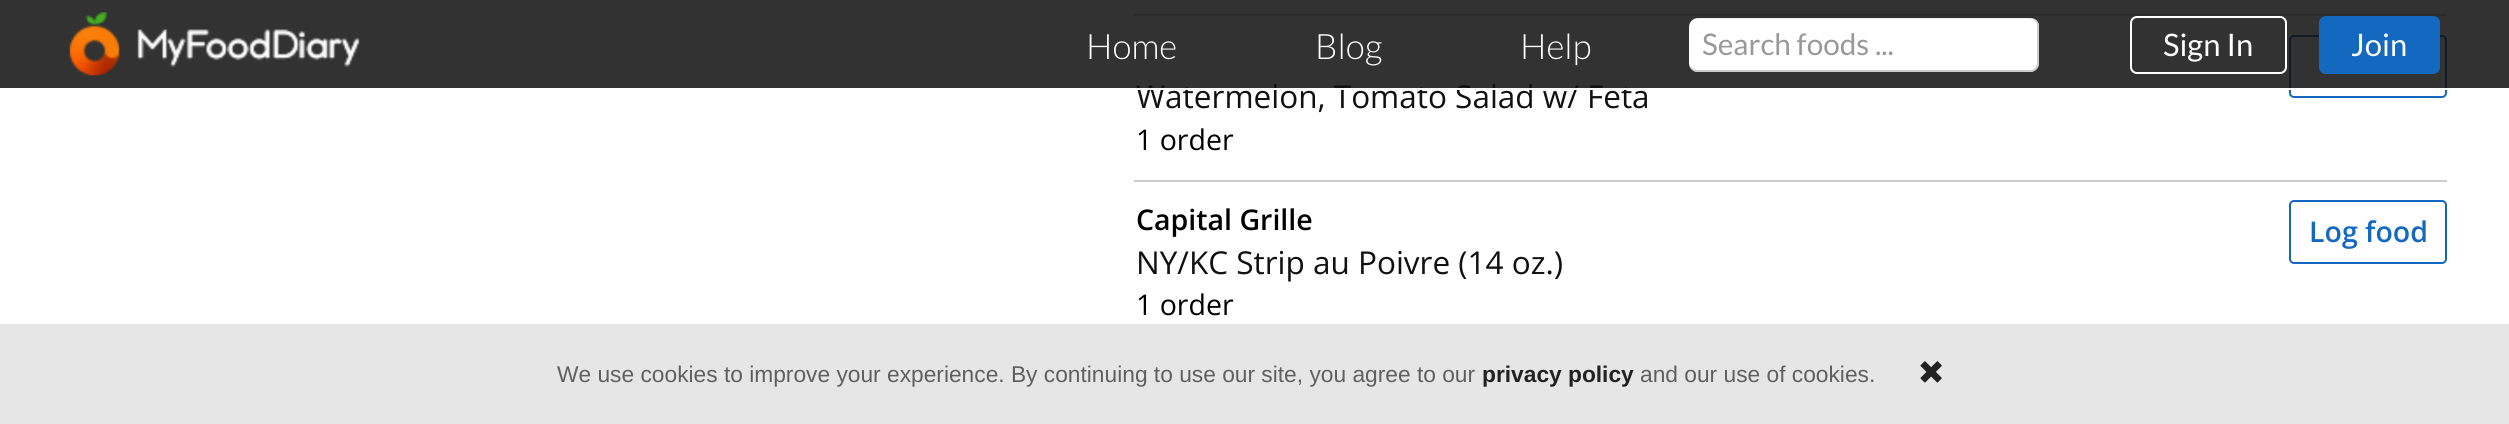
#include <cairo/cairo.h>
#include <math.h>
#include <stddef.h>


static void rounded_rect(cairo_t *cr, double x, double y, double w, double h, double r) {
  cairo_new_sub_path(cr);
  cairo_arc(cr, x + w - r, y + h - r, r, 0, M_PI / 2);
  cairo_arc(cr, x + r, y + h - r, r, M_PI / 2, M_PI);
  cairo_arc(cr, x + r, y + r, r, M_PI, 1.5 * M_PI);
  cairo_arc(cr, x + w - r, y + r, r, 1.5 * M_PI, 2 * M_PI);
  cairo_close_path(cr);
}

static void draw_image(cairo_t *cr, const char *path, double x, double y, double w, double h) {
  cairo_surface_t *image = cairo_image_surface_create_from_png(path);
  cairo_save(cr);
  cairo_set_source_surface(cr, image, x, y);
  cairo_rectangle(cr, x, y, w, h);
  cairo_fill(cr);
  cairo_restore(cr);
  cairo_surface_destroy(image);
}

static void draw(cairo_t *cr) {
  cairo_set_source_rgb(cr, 1, 1, 1);
  cairo_paint(cr);
  cairo_set_source_rgb(cr, 204 / 255.0, 204 / 255.0, 204 / 255.0);
  cairo_rectangle(cr, 1134, 14, 1313, 2);
  cairo_fill(cr);
  rounded_rect(cr, 2290, 36, 156, 61, 4);
  cairo_set_source_rgb(cr, 19 / 255.0, 105 / 255.0, 191 / 255.0);
  cairo_stroke(cr);
  cairo_set_source_rgb(cr, 204 / 255.0, 204 / 255.0, 204 / 255.0);
  cairo_rectangle(cr, 1134, 180, 1313, 2);
  cairo_fill(cr);
  rounded_rect(cr, 2290, 201, 156, 62, 4);
  cairo_set_source_rgb(cr, 19 / 255.0, 105 / 255.0, 191 / 255.0);
  cairo_stroke(cr);
  cairo_set_source_rgb(cr, 230 / 255.0, 230 / 255.0, 230 / 255.0);
  cairo_rectangle(cr, 0, 324, 2509, 100);
  cairo_fill(cr);
  draw_image(cr, "images/3.png", 1920, 361, 22, 22);
  cairo_select_font_face(cr, "Open Sans", CAIRO_FONT_SLANT_NORMAL, CAIRO_FONT_WEIGHT_NORMAL);
  cairo_set_font_size(cr, 31.5);
  cairo_set_source_rgb(cr, 17 / 255.0, 17 / 255.0, 17 / 255.0);
  cairo_move_to(cr, 1136, 108);
  cairo_show_text(cr, "Watermelon, Tomato Salad w/ Feta");
  cairo_set_source_rgba(cr, 15 / 255.0, 15 / 255.0, 15 / 255.0, 0.85);
  cairo_rectangle(cr, 0, 0, 2509, 88);
  cairo_fill(cr);
  cairo_set_source_rgb(cr, 19 / 255.0, 105 / 255.0, 191 / 255.0);
  rounded_rect(cr, 2320, 17, 119, 56, 6);
  cairo_fill_preserve(cr);
  cairo_stroke(cr);
  cairo_select_font_face(cr, "Lato", CAIRO_FONT_SLANT_NORMAL, CAIRO_FONT_WEIGHT_NORMAL);
  cairo_set_font_size(cr, 31);
  cairo_set_source_rgb(cr, 1, 1, 1);
  cairo_move_to(cr, 2351, 56);
  cairo_show_text(cr, "Join");
  rounded_rect(cr, 2131, 17, 155, 56, 6);
  cairo_stroke(cr);
  cairo_move_to(cr, 2163, 56);
  cairo_show_text(cr, "Sign In");
  rounded_rect(cr, 1689, 18, 350, 54, 9);
  cairo_fill(cr);
  cairo_set_source_rgba(cr, 0, 0, 0, 0.07);
  cairo_new_path(cr);
  cairo_move_to(cr, 1698, 19);
  cairo_line_to(cr, 2030, 19);
  cairo_curve_to(cr, 2034, 19, 2037, 23, 2037, 28);
  cairo_curve_to(cr, 2037, 24, 2035, 18, 2030, 18);
  cairo_line_to(cr, 1698, 18);
  cairo_curve_to(cr, 1686, 18, 1689, 31, 1689, 39);
  cairo_line_to(cr, 1689, 65);
  cairo_line_to(cr, 1689, 28);
  cairo_curve_to(cr, 1689, 23, 1693, 19, 1698, 19);
  cairo_close_path(cr);
  cairo_fill(cr);
  cairo_set_source_rgb(cr, 204 / 255.0, 204 / 255.0, 204 / 255.0);
  cairo_set_fill_rule(cr, CAIRO_FILL_RULE_EVEN_ODD);
  cairo_new_path(cr);
  cairo_move_to(cr, 1698, 18);
  cairo_line_to(cr, 2030, 18);
  cairo_curve_to(cr, 2035, 18, 2039, 21, 2039, 26);
  cairo_line_to(cr, 2039, 63);
  cairo_curve_to(cr, 2039, 68, 2035, 72, 2030, 72);
  cairo_line_to(cr, 1698, 72);
  cairo_curve_to(cr, 1693, 72, 1689, 68, 1689, 63);
  cairo_line_to(cr, 1689, 26);
  cairo_curve_to(cr, 1689, 21, 1693, 18, 1698, 18);
  cairo_close_path(cr);
  cairo_move_to(cr, 1698, 18);
  cairo_line_to(cr, 2030, 18);
  cairo_curve_to(cr, 2034, 18, 2037, 21, 2037, 26);
  cairo_line_to(cr, 2037, 63);
  cairo_curve_to(cr, 2037, 67, 2034, 70, 2030, 70);
  cairo_line_to(cr, 1698, 70);
  cairo_curve_to(cr, 1693, 70, 1689, 67, 1689, 63);
  cairo_line_to(cr, 1689, 26);
  cairo_curve_to(cr, 1689, 21, 1693, 18, 1698, 18);
  cairo_close_path(cr);
  cairo_fill(cr);
  cairo_set_font_size(cr, 29.75);
  cairo_set_source_rgb(cr, 153 / 255.0, 153 / 255.0, 153 / 255.0);
  cairo_move_to(cr, 1702, 55);
  cairo_show_text(cr, "Search foods ...");
  cairo_select_font_face(cr, "Lato Light", CAIRO_FONT_SLANT_NORMAL, CAIRO_FONT_WEIGHT_NORMAL);
  cairo_set_font_size(cr, 35);
  cairo_set_source_rgb(cr, 1, 1, 1);
  cairo_move_to(cr, 1520, 59);
  cairo_show_text(cr, "Help");
  cairo_move_to(cr, 1315, 59);
  cairo_show_text(cr, "Blog");
  cairo_move_to(cr, 1086, 59);
  cairo_show_text(cr, "Home");
  draw_image(cr, "images/2.png", 137, 29, 223, 39);
  draw_image(cr, "images/1.png", 69, 12, 51, 64);
  cairo_rectangle(cr, 1136, 88, 1311, 2);
  cairo_fill(cr);
  cairo_select_font_face(cr, "Open Sans", CAIRO_FONT_SLANT_NORMAL, CAIRO_FONT_WEIGHT_NORMAL);
  cairo_set_font_size(cr, 28.5);
  cairo_set_source_rgb(cr, 0, 0, 0);
  cairo_move_to(cr, 1136, 150);
  cairo_show_text(cr, "1 order");
  cairo_select_font_face(cr, "Open Sans SemiBold", CAIRO_FONT_SLANT_NORMAL, CAIRO_FONT_WEIGHT_NORMAL);
  cairo_move_to(cr, 1136, 230);
  cairo_show_text(cr, "Capital Grille");
  cairo_select_font_face(cr, "Open Sans", CAIRO_FONT_SLANT_NORMAL, CAIRO_FONT_WEIGHT_NORMAL);
  cairo_set_font_size(cr, 31.5);
  cairo_set_source_rgb(cr, 17 / 255.0, 17 / 255.0, 17 / 255.0);
  cairo_move_to(cr, 1136, 274);
  cairo_show_text(cr, "NY/KC Strip au Poivre (14 oz.)");
  cairo_set_font_size(cr, 28.5);
  cairo_set_source_rgb(cr, 0, 0, 0);
  cairo_move_to(cr, 1136, 315);
  cairo_show_text(cr, "1 order");
  cairo_select_font_face(cr, "Open Sans SemiBold", CAIRO_FONT_SLANT_NORMAL, CAIRO_FONT_WEIGHT_NORMAL);
  cairo_set_source_rgb(cr, 19 / 255.0, 105 / 255.0, 191 / 255.0);
  cairo_move_to(cr, 2309, 242);
  cairo_show_text(cr, "Log food");
  cairo_select_font_face(cr, "Liberation Sans", CAIRO_FONT_SLANT_NORMAL, CAIRO_FONT_WEIGHT_NORMAL);
  cairo_set_font_size(cr, 22.75);
  cairo_set_source_rgb(cr, 96 / 255.0, 96 / 255.0, 96 / 255.0);
  cairo_move_to(cr, 557, 382);
  cairo_show_text(cr, "We use cookies to improve your experience. By continuing to use our site, you agree to our");
  cairo_select_font_face(cr, "Liberation Sans", CAIRO_FONT_SLANT_NORMAL, CAIRO_FONT_WEIGHT_BOLD);
  cairo_set_source_rgb(cr, 34 / 255.0, 34 / 255.0, 34 / 255.0);
  cairo_move_to(cr, 1482, 382);
  cairo_show_text(cr, "privacy policy");
  cairo_select_font_face(cr, "Liberation Sans", CAIRO_FONT_SLANT_NORMAL, CAIRO_FONT_WEIGHT_NORMAL);
  cairo_set_source_rgb(cr, 96 / 255.0, 96 / 255.0, 96 / 255.0);
  cairo_move_to(cr, 1640, 382);
  cairo_show_text(cr, "and our use of cookies.");
}

int main(void) {
  cairo_surface_t *surface = cairo_image_surface_create(CAIRO_FORMAT_RGB24, 2509, 424);
  cairo_t *cr = cairo_create(surface);
  cairo_font_options_t *options = cairo_font_options_create();
  cairo_font_options_set_hint_metrics(options, CAIRO_HINT_METRICS_OFF);
  cairo_font_options_set_hint_style(options, CAIRO_HINT_STYLE_NONE);
  cairo_set_font_options(cr, options);
  cairo_set_miter_limit(cr, 4);
  draw(cr);
  cairo_surface_write_to_png(surface, "out.png");
  cairo_font_options_destroy(options);
  cairo_destroy(cr);
  cairo_surface_destroy(surface);
  return 0;
}
